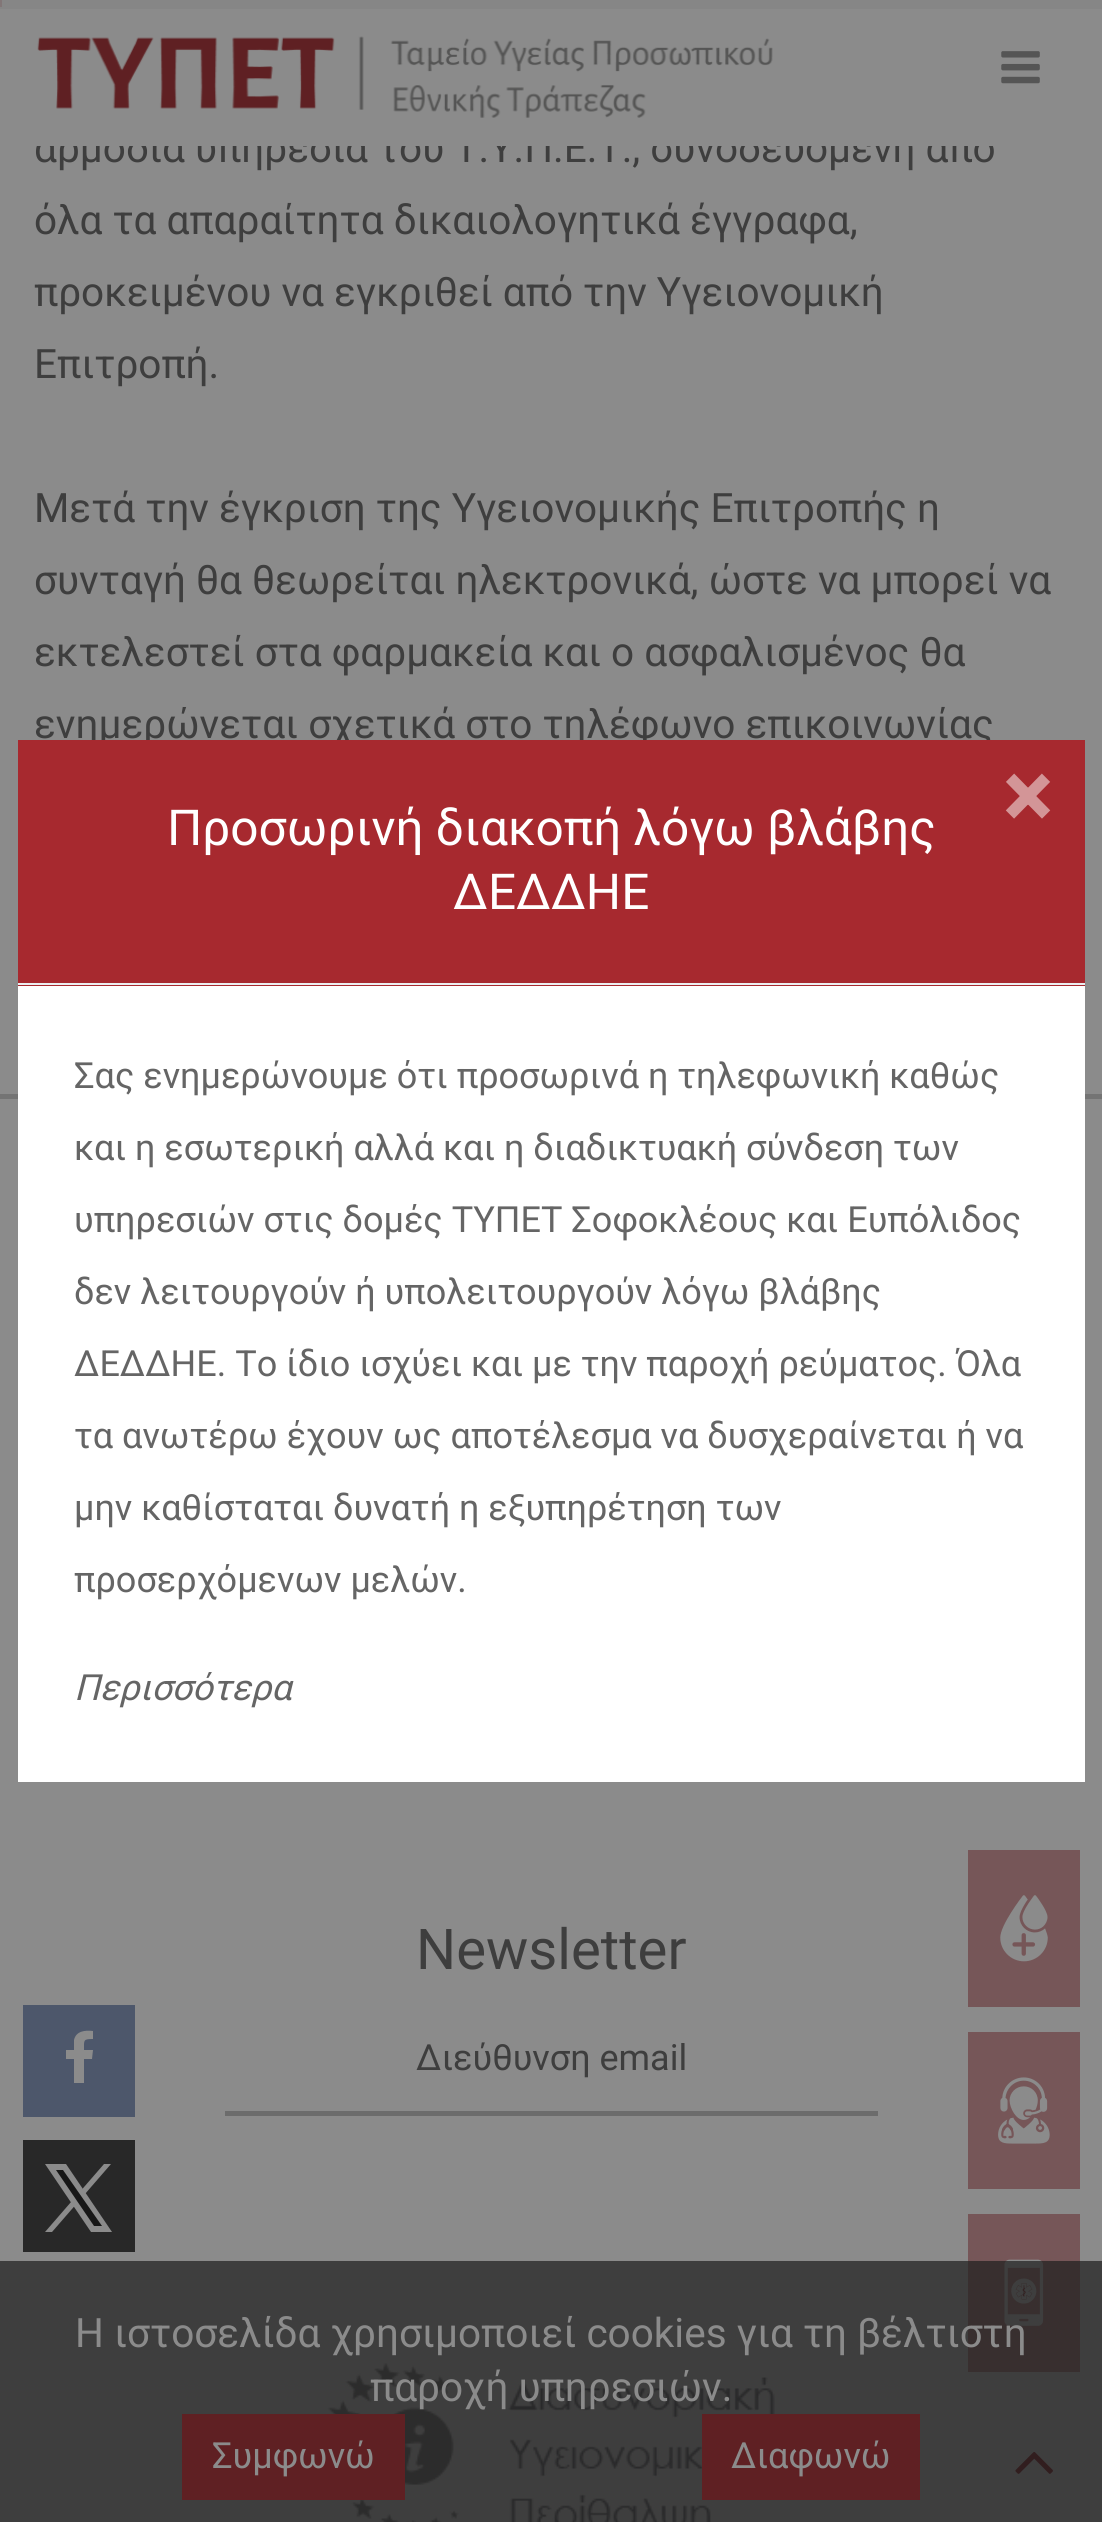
#include <cairo/cairo.h>
#include <math.h>
#include <stddef.h>


static void draw_image(cairo_t *cr, const char *path, double x, double y, double w, double h) {
  cairo_surface_t *image = cairo_image_surface_create_from_png(path);
  cairo_save(cr);
  cairo_set_source_surface(cr, image, x, y);
  cairo_rectangle(cr, x, y, w, h);
  cairo_fill(cr);
  cairo_restore(cr);
  cairo_surface_destroy(image);
}

static void draw(cairo_t *cr) {
  cairo_set_source_rgb(cr, 139 / 255.0, 139 / 255.0, 139 / 255.0);
  cairo_paint(cr);
  cairo_set_source_rgb(cr, 62 / 255.0, 62 / 255.0, 62 / 255.0);
  cairo_rectangle(cr, 0, 2261, 1102, 261);
  cairo_fill(cr);
  cairo_set_source_rgb(cr, 134 / 255.0, 134 / 255.0, 134 / 255.0);
  cairo_rectangle(cr, 0, 0, 1102, 9);
  cairo_fill(cr);
  cairo_set_source_rgb(cr, 130 / 255.0, 118 / 255.0, 119 / 255.0);
  cairo_rectangle(cr, 0, 0, 2, 7);
  cairo_fill(cr);
  draw_image(cr, "images/1.png", 37, 36, 736, 82);
  draw_image(cr, "images/2.png", 1001, 51, 39, 33);
  cairo_set_source_rgb(cr, 77 / 255.0, 87 / 255.0, 107 / 255.0);
  cairo_rectangle(cr, 23, 2005, 112, 112);
  cairo_fill(cr);
  cairo_set_source_rgb(cr, 139 / 255.0, 139 / 255.0, 139 / 255.0);
  cairo_new_path(cr);
  cairo_move_to(cr, 93, 2031);
  cairo_line_to(cr, 93, 2039);
  cairo_curve_to(cr, 83, 2039, 84, 2040, 84, 2050);
  cairo_line_to(cr, 93, 2050);
  cairo_line_to(cr, 92, 2059);
  cairo_line_to(cr, 84, 2059);
  cairo_line_to(cr, 84, 2083);
  cairo_line_to(cr, 74, 2083);
  cairo_line_to(cr, 74, 2059);
  cairo_line_to(cr, 66, 2059);
  cairo_line_to(cr, 66, 2050);
  cairo_line_to(cr, 74, 2050);
  cairo_line_to(cr, 74, 2040);
  cairo_curve_to(cr, 76, 2031, 85, 2030, 93, 2031);
  cairo_close_path(cr);
  cairo_fill(cr);
  cairo_set_source_rgb(cr, 116 / 255.0, 116 / 255.0, 116 / 255.0);
  cairo_rectangle(cr, 0, 1094, 1102, 5);
  cairo_fill(cr);
  cairo_set_source_rgb(cr, 108 / 255.0, 108 / 255.0, 108 / 255.0);
  cairo_rectangle(cr, 225, 2111, 653, 5);
  cairo_fill(cr);
  draw_image(cr, "images/3.png", 327, 2363, 448, 159);
  cairo_set_source_rgb(cr, 118 / 255.0, 86 / 255.0, 88 / 255.0);
  cairo_rectangle(cr, 968, 1850, 112, 157);
  cairo_fill(cr);
  draw_image(cr, "images/4.png", 1000, 1895, 48, 67);
  cairo_rectangle(cr, 968, 2032, 112, 157);
  cairo_fill(cr);
  draw_image(cr, "images/5.png", 998, 2077, 52, 67);
  cairo_rectangle(cr, 968, 2214, 112, 47);
  cairo_fill(cr);
  cairo_set_source_rgb(cr, 56 / 255.0, 47 / 255.0, 47 / 255.0);
  cairo_rectangle(cr, 968, 2261, 112, 111);
  cairo_fill(cr);
  draw_image(cr, "images/6.png", 1004, 2259, 40, 67);
  cairo_set_source_rgb(cr, 40 / 255.0, 40 / 255.0, 40 / 255.0);
  cairo_rectangle(cr, 23, 2140, 112, 112);
  cairo_fill(cr);
  cairo_set_source_rgb(cr, 139 / 255.0, 139 / 255.0, 139 / 255.0);
  cairo_new_path(cr);
  cairo_move_to(cr, 111, 2164);
  cairo_line_to(cr, 52, 2232);
  cairo_line_to(cr, 45, 2232);
  cairo_line_to(cr, 104, 2164);
  cairo_close_path(cr);
  cairo_fill(cr);
  cairo_set_source_rgb(cr, 23 / 255.0, 23 / 255.0, 23 / 255.0);
  cairo_set_fill_rule(cr, CAIRO_FILL_RULE_EVEN_ODD);
  cairo_new_path(cr);
  cairo_move_to(cr, 92, 2230);
  cairo_line_to(cr, 48, 2166);
  cairo_line_to(cr, 65, 2166);
  cairo_line_to(cr, 109, 2230);
  cairo_close_path(cr);
  cairo_fill(cr);
  cairo_set_source_rgb(cr, 139 / 255.0, 139 / 255.0, 139 / 255.0);
  cairo_set_fill_rule(cr, CAIRO_FILL_RULE_WINDING);
  cairo_new_path(cr);
  cairo_move_to(cr, 63, 2170);
  cairo_line_to(cr, 102, 2226);
  cairo_line_to(cr, 94, 2226);
  cairo_line_to(cr, 56, 2170);
  cairo_line_to(cr, 63, 2170);
  cairo_move_to(cr, 66, 2164);
  cairo_line_to(cr, 45, 2164);
  cairo_line_to(cr, 91, 2232);
  cairo_line_to(cr, 112, 2232);
  cairo_close_path(cr);
  cairo_fill(cr);
  cairo_set_source_rgb(cr, 1, 1, 1);
  cairo_rectangle(cr, 18, 986, 1067, 796);
  cairo_fill(cr);
  cairo_set_source_rgb(cr, 95 / 255.0, 32 / 255.0, 35 / 255.0);
  cairo_rectangle(cr, 182, 2414, 223, 86);
  cairo_fill(cr);
  cairo_rectangle(cr, 702, 2414, 218, 86);
  cairo_fill(cr);
  draw_image(cr, "images/7.png", 1015, 2452, 38, 22);
  cairo_select_font_face(cr, "Roboto", CAIRO_FONT_SLANT_NORMAL, CAIRO_FONT_WEIGHT_NORMAL);
  cairo_set_font_size(cr, 40.5);
  cairo_set_source_rgb(cr, 62 / 255.0, 62 / 255.0, 62 / 255.0);
  cairo_move_to(cr, 34, 162);
  cairo_show_text(cr, "αρμόδια υπηρεσία του Τ.Υ.Π.Ε.Τ., συνοδευόμενη από");
  cairo_set_source_rgb(cr, 139 / 255.0, 139 / 255.0, 139 / 255.0);
  cairo_rectangle(cr, 36, 130, 957, 16);
  cairo_fill(cr);
  cairo_set_source_rgb(cr, 62 / 255.0, 62 / 255.0, 62 / 255.0);
  cairo_move_to(cr, 34, 234);
  cairo_show_text(cr, "όλα τα απαραίτητα δικαιολογητικά έγγραφα,");
  cairo_move_to(cr, 34, 306);
  cairo_show_text(cr, "προκειμένου να εγκριθεί από την Υγειονομική");
  cairo_move_to(cr, 34, 378);
  cairo_show_text(cr, "Επιτροπή.");
  cairo_move_to(cr, 34, 522);
  cairo_show_text(cr, "Μετά την έγκριση της Υγειονομικής Επιτροπής η");
  cairo_move_to(cr, 34, 594);
  cairo_show_text(cr, "συνταγή θα θεωρείται ηλεκτρονικά, ώστε να μπορεί να");
  cairo_move_to(cr, 34, 666);
  cairo_show_text(cr, "εκτελεστεί στα φαρμακεία και ο ασφαλισμένος θα");
  cairo_move_to(cr, 34, 738);
  cairo_show_text(cr, "ενημερώνεται σχετικά στο τηλέφωνο επικοινωνίας");
  cairo_set_font_size(cr, 56.25);
  cairo_move_to(cr, 416, 1969);
  cairo_show_text(cr, "Newsletter");
  cairo_set_font_size(cr, 36);
  cairo_move_to(cr, 416, 2070);
  cairo_show_text(cr, "Διεύθυνση email");
  cairo_set_source_rgb(cr, 167 / 255.0, 41 / 255.0, 47 / 255.0);
  cairo_rectangle(cr, 18, 740, 1067, 246);
  cairo_fill(cr);
  cairo_set_source_rgb(cr, 235 / 255.0, 238 / 255.0, 240 / 255.0);
  cairo_rectangle(cr, 18, 983, 1067, 2);
  cairo_fill(cr);
  cairo_select_font_face(cr, "Roboto", CAIRO_FONT_SLANT_NORMAL, CAIRO_FONT_WEIGHT_BOLD);
  cairo_set_font_size(cr, 90);
  cairo_set_source_rgb(cr, 211 / 255.0, 149 / 255.0, 151 / 255.0);
  cairo_move_to(cr, 1003, 827);
  cairo_show_text(cr, "×");
  cairo_select_font_face(cr, "Roboto", CAIRO_FONT_SLANT_NORMAL, CAIRO_FONT_WEIGHT_NORMAL);
  cairo_set_font_size(cr, 49.5);
  cairo_set_source_rgb(cr, 1, 1, 1);
  cairo_move_to(cr, 167, 845);
  cairo_show_text(cr, "Προσωρινή διακοπή λόγω βλάβης");
  cairo_move_to(cr, 453, 909);
  cairo_show_text(cr, "ΔΕΔΔΗΕ");
  cairo_set_font_size(cr, 36);
  cairo_set_source_rgb(cr, 101 / 255.0, 101 / 255.0, 101 / 255.0);
  cairo_move_to(cr, 74, 1088);
  cairo_show_text(cr, "Σας ενημερώνουμε ότι προσωρινά η τηλεφωνική καθώς");
  cairo_move_to(cr, 74, 1160);
  cairo_show_text(cr, "και η εσωτερική αλλά και η διαδικτυακή σύνδεση των");
  cairo_move_to(cr, 74, 1232);
  cairo_show_text(cr, "υπηρεσιών στις δομές ΤΥΠΕΤ Σοφοκλέους και Ευπόλιδος");
  cairo_move_to(cr, 74, 1304);
  cairo_show_text(cr, "δεν λειτουργούν ή υπολειτουργούν λόγω βλάβης");
  cairo_move_to(cr, 74, 1376);
  cairo_show_text(cr, "ΔΕΔΔΗΕ. Το ίδιο ισχύει και με την παροχή ρεύματος. Όλα");
  cairo_move_to(cr, 74, 1448);
  cairo_show_text(cr, "τα ανωτέρω έχουν ως αποτέλεσμα να δυσχεραίνεται ή να");
  cairo_move_to(cr, 74, 1520);
  cairo_show_text(cr, "μην καθίσταται δυνατή η εξυπηρέτηση των");
  cairo_move_to(cr, 74, 1592);
  cairo_show_text(cr, "προσερχόμενων μελών.");
  cairo_select_font_face(cr, "Roboto", CAIRO_FONT_SLANT_ITALIC, CAIRO_FONT_WEIGHT_NORMAL);
  cairo_move_to(cr, 74, 1700);
  cairo_show_text(cr, "Περισσότερα");
  cairo_select_font_face(cr, "Roboto", CAIRO_FONT_SLANT_NORMAL, CAIRO_FONT_WEIGHT_NORMAL);
  cairo_set_font_size(cr, 40.5);
  cairo_set_source_rgb(cr, 139 / 255.0, 139 / 255.0, 139 / 255.0);
  cairo_move_to(cr, 75, 2347);
  cairo_show_text(cr, "Η ιστοσελίδα χρησιμοποιεί cookies για τη βέλτιστη");
  cairo_move_to(cr, 370, 2401);
  cairo_show_text(cr, "παροχή υπηρεσιών.");
  cairo_set_font_size(cr, 36);
  cairo_move_to(cr, 212, 2468);
  cairo_show_text(cr, "Συμφωνώ");
  cairo_move_to(cr, 731, 2468);
  cairo_show_text(cr, "Διαφωνώ");
}

int main(void) {
  cairo_surface_t *surface = cairo_image_surface_create(CAIRO_FORMAT_RGB24, 1102, 2522);
  cairo_t *cr = cairo_create(surface);
  cairo_font_options_t *options = cairo_font_options_create();
  cairo_font_options_set_hint_metrics(options, CAIRO_HINT_METRICS_OFF);
  cairo_font_options_set_hint_style(options, CAIRO_HINT_STYLE_NONE);
  cairo_set_font_options(cr, options);
  cairo_set_miter_limit(cr, 4);
  draw(cr);
  cairo_surface_write_to_png(surface, "out.png");
  cairo_font_options_destroy(options);
  cairo_destroy(cr);
  cairo_surface_destroy(surface);
  return 0;
}
